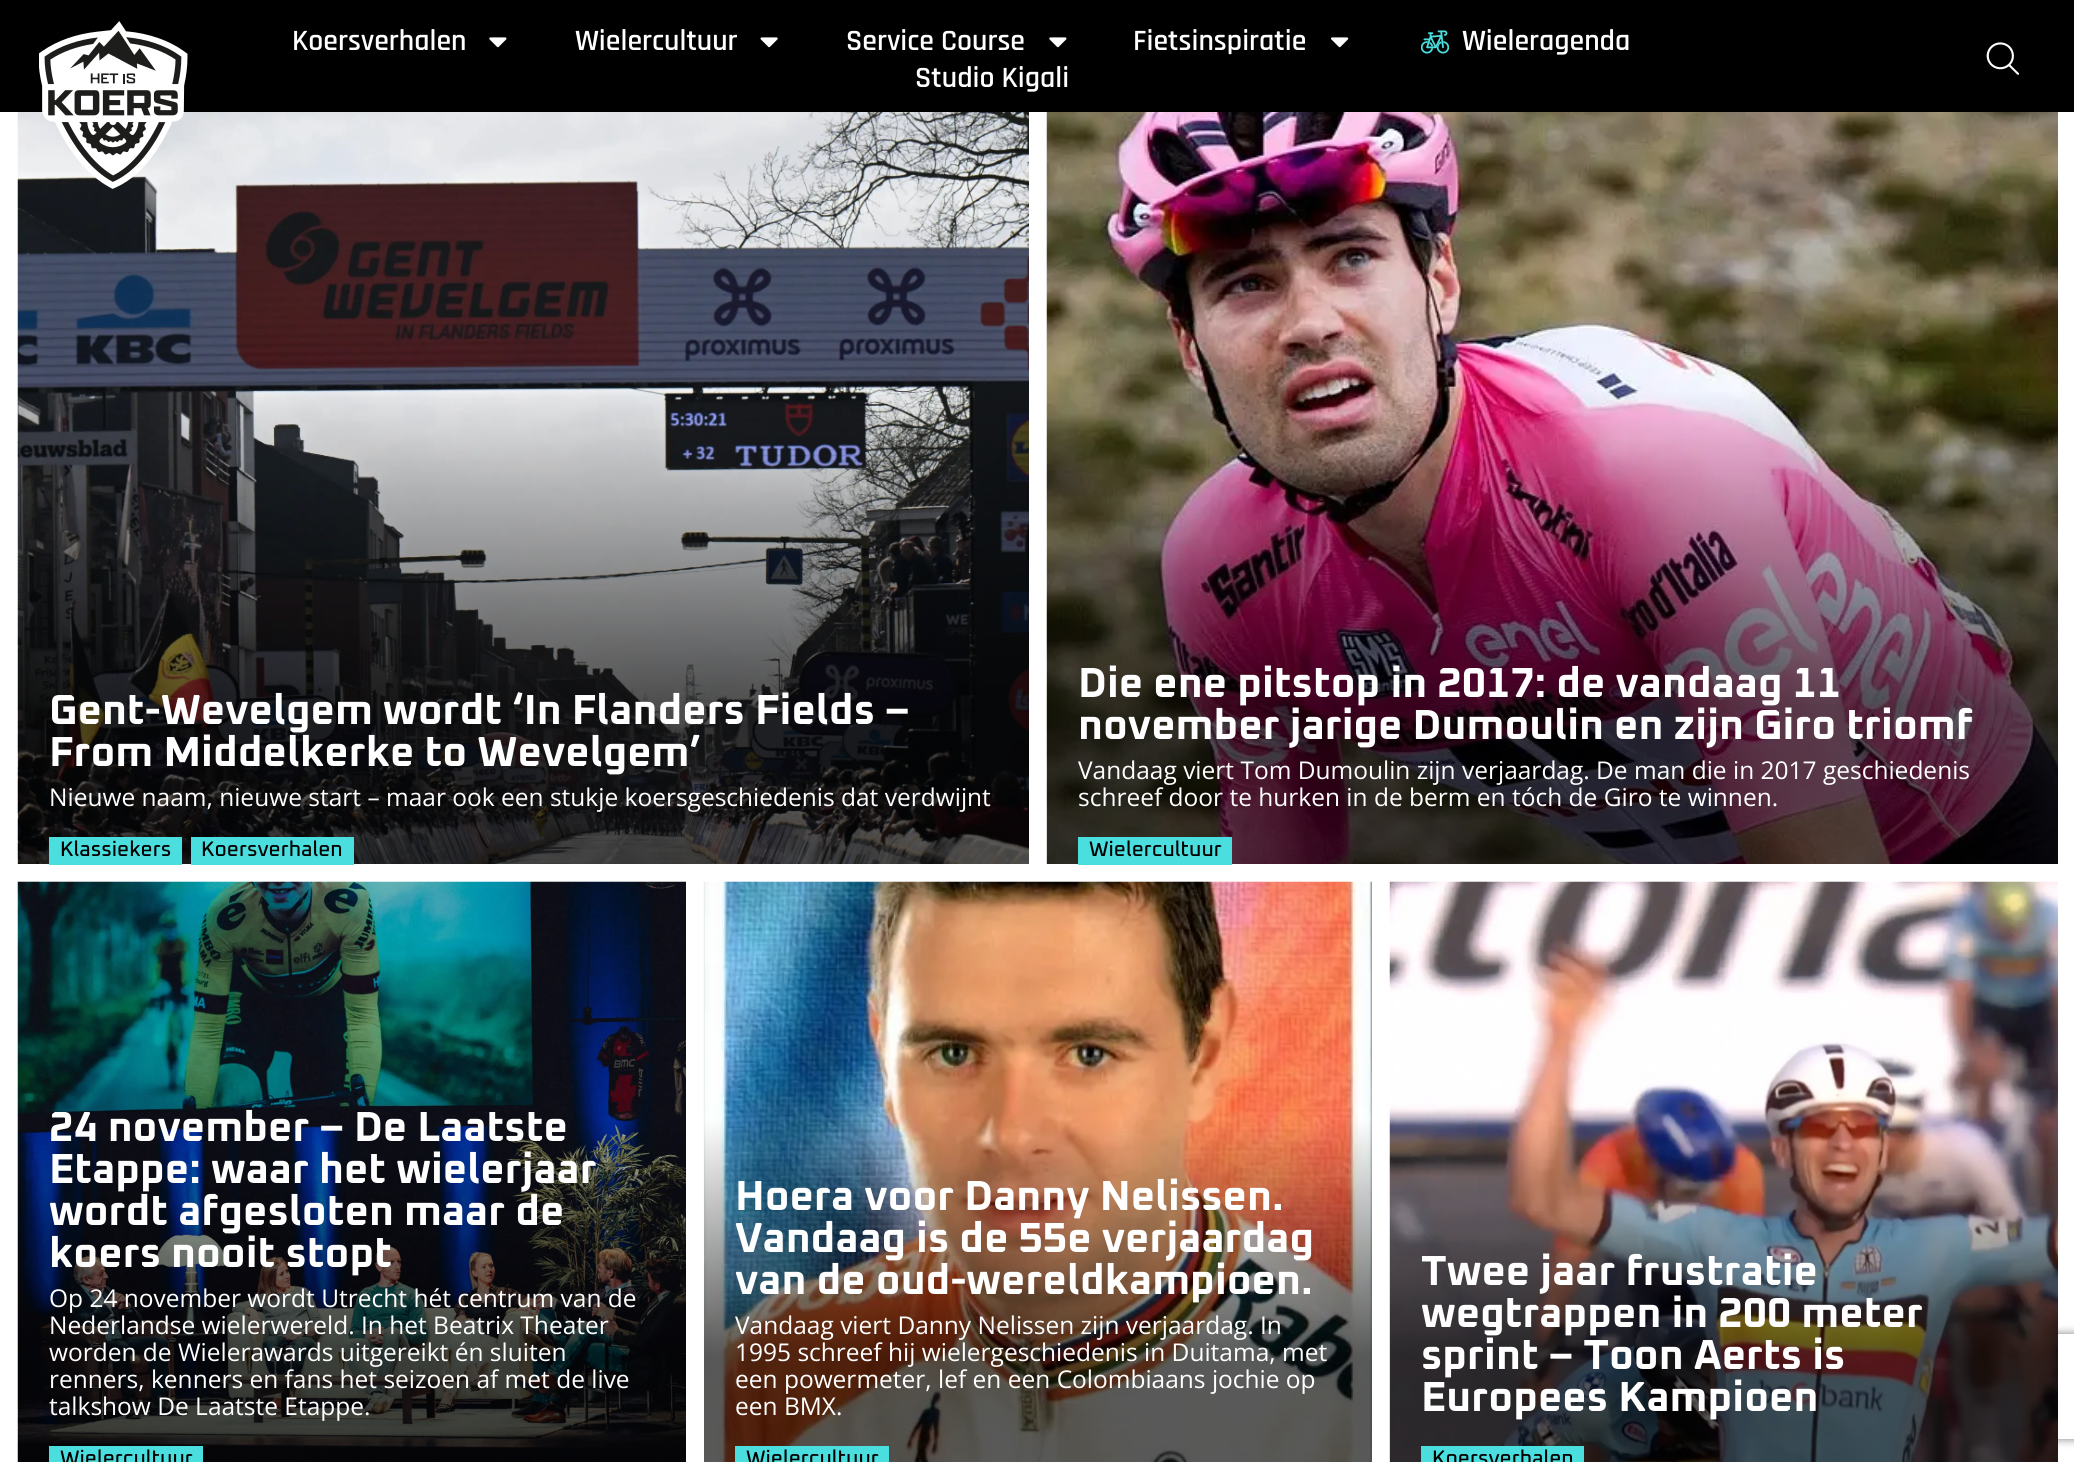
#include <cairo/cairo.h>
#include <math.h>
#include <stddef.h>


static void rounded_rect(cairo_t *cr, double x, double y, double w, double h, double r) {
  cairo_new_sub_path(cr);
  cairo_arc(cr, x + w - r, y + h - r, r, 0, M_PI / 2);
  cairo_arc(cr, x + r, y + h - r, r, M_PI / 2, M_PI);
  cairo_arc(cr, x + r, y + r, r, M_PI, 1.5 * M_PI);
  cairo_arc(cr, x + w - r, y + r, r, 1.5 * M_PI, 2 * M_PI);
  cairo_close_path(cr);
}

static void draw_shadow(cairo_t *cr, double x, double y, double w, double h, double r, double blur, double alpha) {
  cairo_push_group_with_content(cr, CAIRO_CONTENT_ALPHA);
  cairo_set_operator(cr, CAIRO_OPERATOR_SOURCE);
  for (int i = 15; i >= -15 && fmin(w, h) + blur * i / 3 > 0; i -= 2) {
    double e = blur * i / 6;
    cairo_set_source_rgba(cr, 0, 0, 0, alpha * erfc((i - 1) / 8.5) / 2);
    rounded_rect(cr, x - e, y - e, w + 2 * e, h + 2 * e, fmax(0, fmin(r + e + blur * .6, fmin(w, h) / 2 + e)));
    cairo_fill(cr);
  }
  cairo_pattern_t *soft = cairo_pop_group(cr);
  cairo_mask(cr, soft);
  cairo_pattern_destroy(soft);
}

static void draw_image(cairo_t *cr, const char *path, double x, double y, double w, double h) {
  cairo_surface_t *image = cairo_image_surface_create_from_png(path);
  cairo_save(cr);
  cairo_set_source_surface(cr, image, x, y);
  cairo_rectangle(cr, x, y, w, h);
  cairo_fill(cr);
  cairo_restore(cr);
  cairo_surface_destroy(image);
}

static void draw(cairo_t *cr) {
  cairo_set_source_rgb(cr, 1, 1, 1);
  cairo_paint(cr);
  cairo_set_source_rgb(cr, 0, 0, 0);
  cairo_rectangle(cr, 0, 0, 2074, 112);
  cairo_fill(cr);
  draw_image(cr, "images/7.png", 17, 112, 1012, 752);
  draw_image(cr, "images/1.png", 39, 21, 149, 168);
  draw_image(cr, "images/2.png", 489, 37, 18, 11);
  draw_image(cr, "images/3.png", 760, 37, 18, 11);
  draw_image(cr, "images/2.png", 1049, 37, 18, 11);
  draw_image(cr, "images/4.png", 1331, 37, 18, 11);
  draw_image(cr, "images/5.png", 1421, 30, 28, 24);
  draw_image(cr, "images/6.png", 1986, 42, 34, 33);
  cairo_set_source_rgb(cr, 75 / 255.0, 222 / 255.0, 223 / 255.0);
  cairo_rectangle(cr, 49, 837, 133, 28);
  cairo_fill(cr);
  cairo_rectangle(cr, 191, 837, 163, 28);
  cairo_fill(cr);
  draw_image(cr, "images/8.png", 1046, 112, 1012, 752);
  cairo_rectangle(cr, 1078, 837, 154, 28);
  cairo_fill(cr);
  draw_image(cr, "images/9.png", 17, 881, 669, 581);
  cairo_rectangle(cr, 49, 1446, 154, 16);
  cairo_fill(cr);
  draw_image(cr, "images/10.png", 703, 881, 669, 581);
  cairo_rectangle(cr, 735, 1446, 154, 16);
  cairo_fill(cr);
  cairo_save(cr);
  cairo_set_fill_rule(cr, CAIRO_FILL_RULE_EVEN_ODD);
  cairo_new_path(cr);
  cairo_move_to(cr, 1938, 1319);
  cairo_line_to(cr, 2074, 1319);
  cairo_line_to(cr, 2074, 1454);
  cairo_line_to(cr, 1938, 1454);
  cairo_close_path(cr);
  cairo_move_to(cr, 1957, 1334);
  cairo_line_to(cr, 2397, 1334);
  cairo_curve_to(cr, 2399, 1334, 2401, 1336, 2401, 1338);
  cairo_line_to(cr, 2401, 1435);
  cairo_curve_to(cr, 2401, 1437, 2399, 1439, 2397, 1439);
  cairo_line_to(cr, 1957, 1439);
  cairo_curve_to(cr, 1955, 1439, 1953, 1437, 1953, 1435);
  cairo_line_to(cr, 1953, 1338);
  cairo_curve_to(cr, 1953, 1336, 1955, 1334, 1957, 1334);
  cairo_close_path(cr);
  cairo_clip(cr);
  cairo_set_source_rgb(cr, 128 / 255.0, 128 / 255.0, 128 / 255.0);
  draw_shadow(cr, 1953, 1334, 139, 105, 4, 4.5, 1);
  cairo_restore(cr);
  draw_image(cr, "images/11.png", 1389, 881, 669, 581);
  cairo_rectangle(cr, 1421, 1446, 163, 16);
  cairo_fill(cr);
  cairo_select_font_face(cr, "Rajdhani SemiBold", CAIRO_FONT_SLANT_NORMAL, CAIRO_FONT_WEIGHT_NORMAL);
  cairo_set_font_size(cr, 29.75);
  cairo_set_source_rgb(cr, 1, 1, 1);
  cairo_move_to(cr, 292, 50);
  cairo_show_text(cr, "Koersverhalen");
  cairo_move_to(cr, 575, 50);
  cairo_show_text(cr, "Wielercultuur");
  cairo_move_to(cr, 846, 50);
  cairo_show_text(cr, "Service Course");
  cairo_move_to(cr, 1133, 50);
  cairo_show_text(cr, "Fietsinspiratie");
  cairo_move_to(cr, 1462, 50);
  cairo_show_text(cr, "Wieleragenda");
  cairo_move_to(cr, 915, 87);
  cairo_show_text(cr, "Studio Kigali");
  cairo_select_font_face(cr, "Oxanium", CAIRO_FONT_SLANT_NORMAL, CAIRO_FONT_WEIGHT_BOLD);
  cairo_set_font_size(cr, 42);
  cairo_move_to(cr, 49, 724);
  cairo_show_text(cr, "Gent-Wevelgem wordt ‘In Flanders Fields –");
  cairo_move_to(cr, 49, 766);
  cairo_show_text(cr, "From Middelkerke to Wevelgem’");
  cairo_select_font_face(cr, "Open Sans", CAIRO_FONT_SLANT_NORMAL, CAIRO_FONT_WEIGHT_NORMAL);
  cairo_set_font_size(cr, 24.5);
  cairo_move_to(cr, 49, 806);
  cairo_show_text(cr, "Nieuwe naam, nieuwe start – maar ook een stukje koersgeschiedenis dat verdwijnt");
  cairo_select_font_face(cr, "Oxanium Medium", CAIRO_FONT_SLANT_NORMAL, CAIRO_FONT_WEIGHT_NORMAL);
  cairo_set_font_size(cr, 21);
  cairo_set_source_rgb(cr, 0, 0, 0);
  cairo_move_to(cr, 60, 856);
  cairo_show_text(cr, "Klassiekers");
  cairo_move_to(cr, 201, 856);
  cairo_show_text(cr, "Koersverhalen");
  cairo_select_font_face(cr, "Oxanium", CAIRO_FONT_SLANT_NORMAL, CAIRO_FONT_WEIGHT_BOLD);
  cairo_set_font_size(cr, 42);
  cairo_set_source_rgb(cr, 1, 1, 1);
  cairo_move_to(cr, 1078, 697);
  cairo_show_text(cr, "Die ene pitstop in 2017: de vandaag 11");
  cairo_move_to(cr, 1078, 739);
  cairo_show_text(cr, "november jarige Dumoulin en zijn Giro triomf");
  cairo_select_font_face(cr, "Open Sans", CAIRO_FONT_SLANT_NORMAL, CAIRO_FONT_WEIGHT_NORMAL);
  cairo_set_font_size(cr, 24.5);
  cairo_move_to(cr, 1078, 779);
  cairo_show_text(cr, "Vandaag viert Tom Dumoulin zijn verjaardag. De man die in 2017 geschiedenis");
  cairo_move_to(cr, 1078, 806);
  cairo_show_text(cr, "schreef door te hurken in de berm en tóch de Giro te winnen.");
  cairo_select_font_face(cr, "Oxanium Medium", CAIRO_FONT_SLANT_NORMAL, CAIRO_FONT_WEIGHT_NORMAL);
  cairo_set_font_size(cr, 21);
  cairo_set_source_rgb(cr, 0, 0, 0);
  cairo_move_to(cr, 1089, 856);
  cairo_show_text(cr, "Wielercultuur");
  cairo_select_font_face(cr, "Oxanium", CAIRO_FONT_SLANT_NORMAL, CAIRO_FONT_WEIGHT_BOLD);
  cairo_set_font_size(cr, 42);
  cairo_set_source_rgb(cr, 1, 1, 1);
  cairo_move_to(cr, 49, 1141);
  cairo_show_text(cr, "24 november – De Laatste");
  cairo_move_to(cr, 49, 1183);
  cairo_show_text(cr, "Etappe: waar het wielerjaar");
  cairo_move_to(cr, 49, 1225);
  cairo_show_text(cr, "wordt afgesloten maar de");
  cairo_move_to(cr, 49, 1267);
  cairo_show_text(cr, "koers nooit stopt");
  cairo_select_font_face(cr, "Open Sans", CAIRO_FONT_SLANT_NORMAL, CAIRO_FONT_WEIGHT_NORMAL);
  cairo_set_font_size(cr, 24.5);
  cairo_move_to(cr, 49, 1307);
  cairo_show_text(cr, "Op 24 november wordt Utrecht hét centrum van de");
  cairo_move_to(cr, 49, 1334);
  cairo_show_text(cr, "Nederlandse wielerwereld. In het Beatrix Theater");
  cairo_move_to(cr, 49, 1361);
  cairo_show_text(cr, "worden de Wielerawards uitgereikt én sluiten");
  cairo_move_to(cr, 49, 1388);
  cairo_show_text(cr, "renners, kenners en fans het seizoen af met de live");
  cairo_move_to(cr, 49, 1415);
  cairo_show_text(cr, "talkshow De Laatste Etappe.");
  cairo_select_font_face(cr, "Oxanium Medium", CAIRO_FONT_SLANT_NORMAL, CAIRO_FONT_WEIGHT_NORMAL);
  cairo_set_font_size(cr, 21);
  cairo_set_source_rgb(cr, 0, 0, 0);
  cairo_move_to(cr, 60, 1465);
  cairo_show_text(cr, "Wielercultuur");
  cairo_select_font_face(cr, "Oxanium", CAIRO_FONT_SLANT_NORMAL, CAIRO_FONT_WEIGHT_BOLD);
  cairo_set_font_size(cr, 42);
  cairo_set_source_rgb(cr, 1, 1, 1);
  cairo_move_to(cr, 735, 1210);
  cairo_show_text(cr, "Hoera voor Danny Nelissen.");
  cairo_move_to(cr, 735, 1252);
  cairo_show_text(cr, "Vandaag is de 55e verjaardag");
  cairo_move_to(cr, 735, 1294);
  cairo_show_text(cr, "van de oud-wereldkampioen.");
  cairo_select_font_face(cr, "Open Sans", CAIRO_FONT_SLANT_NORMAL, CAIRO_FONT_WEIGHT_NORMAL);
  cairo_set_font_size(cr, 24.5);
  cairo_move_to(cr, 735, 1334);
  cairo_show_text(cr, "Vandaag viert Danny Nelissen zijn verjaardag. In");
  cairo_move_to(cr, 735, 1361);
  cairo_show_text(cr, "1995 schreef hij wielergeschiedenis in Duitama, met");
  cairo_move_to(cr, 735, 1388);
  cairo_show_text(cr, "een powermeter, lef en een Colombiaans jochie op");
  cairo_move_to(cr, 735, 1415);
  cairo_show_text(cr, "een BMX.");
  cairo_select_font_face(cr, "Oxanium Medium", CAIRO_FONT_SLANT_NORMAL, CAIRO_FONT_WEIGHT_NORMAL);
  cairo_set_font_size(cr, 21);
  cairo_set_source_rgb(cr, 0, 0, 0);
  cairo_move_to(cr, 746, 1465);
  cairo_show_text(cr, "Wielercultuur");
  cairo_select_font_face(cr, "Oxanium", CAIRO_FONT_SLANT_NORMAL, CAIRO_FONT_WEIGHT_BOLD);
  cairo_set_font_size(cr, 42);
  cairo_set_source_rgb(cr, 1, 1, 1);
  cairo_move_to(cr, 1421, 1285);
  cairo_show_text(cr, "Twee jaar frustratie");
  cairo_move_to(cr, 1421, 1327);
  cairo_show_text(cr, "wegtrappen in 200 meter");
  cairo_move_to(cr, 1421, 1369);
  cairo_show_text(cr, "sprint – Toon Aerts is");
  cairo_move_to(cr, 1421, 1411);
  cairo_show_text(cr, "Europees Kampioen");
  cairo_select_font_face(cr, "Oxanium Medium", CAIRO_FONT_SLANT_NORMAL, CAIRO_FONT_WEIGHT_NORMAL);
  cairo_set_font_size(cr, 21);
  cairo_set_source_rgb(cr, 0, 0, 0);
  cairo_move_to(cr, 1432, 1465);
  cairo_show_text(cr, "Koersverhalen");
}

int main(void) {
  cairo_surface_t *surface = cairo_image_surface_create(CAIRO_FORMAT_RGB24, 2074, 1462);
  cairo_t *cr = cairo_create(surface);
  cairo_font_options_t *options = cairo_font_options_create();
  cairo_font_options_set_hint_metrics(options, CAIRO_HINT_METRICS_OFF);
  cairo_font_options_set_hint_style(options, CAIRO_HINT_STYLE_NONE);
  cairo_set_font_options(cr, options);
  cairo_set_miter_limit(cr, 4);
  draw(cr);
  cairo_surface_write_to_png(surface, "out.png");
  cairo_font_options_destroy(options);
  cairo_destroy(cr);
  cairo_surface_destroy(surface);
  return 0;
}
